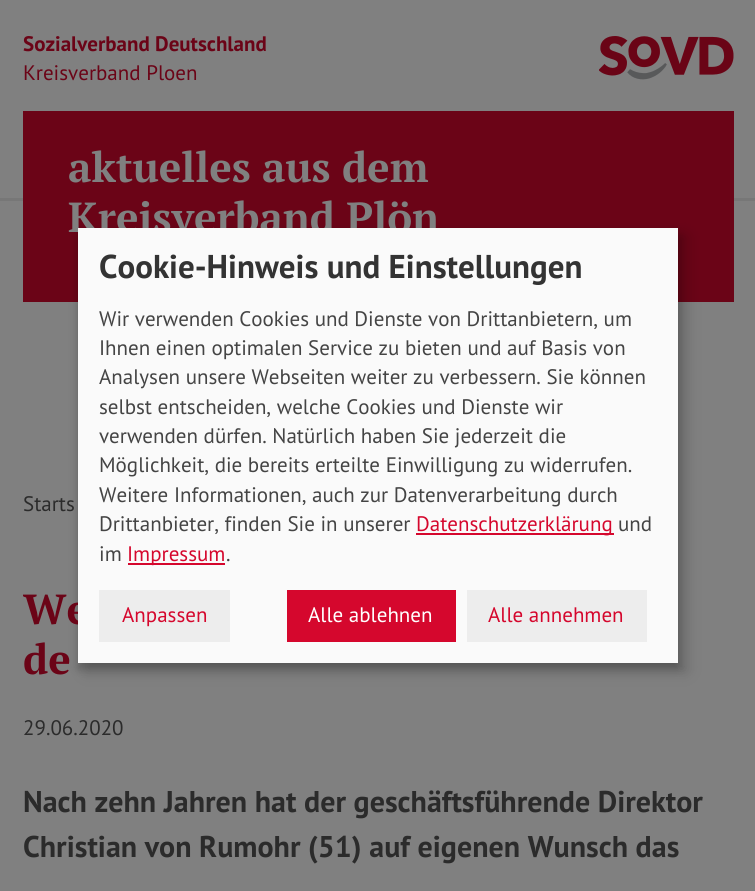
#include <cairo/cairo.h>
#include <math.h>
#include <stddef.h>


static void rounded_rect(cairo_t *cr, double x, double y, double w, double h, double r) {
  cairo_new_sub_path(cr);
  cairo_arc(cr, x + w - r, y + h - r, r, 0, M_PI / 2);
  cairo_arc(cr, x + r, y + h - r, r, M_PI / 2, M_PI);
  cairo_arc(cr, x + r, y + r, r, M_PI, 1.5 * M_PI);
  cairo_arc(cr, x + w - r, y + r, r, 1.5 * M_PI, 2 * M_PI);
  cairo_close_path(cr);
}

static void draw_shadow(cairo_t *cr, double x, double y, double w, double h, double r, double blur, double alpha) {
  cairo_push_group_with_content(cr, CAIRO_CONTENT_ALPHA);
  cairo_set_operator(cr, CAIRO_OPERATOR_SOURCE);
  for (int i = 15; i >= -15 && fmin(w, h) + blur * i / 3 > 0; i -= 2) {
    double e = blur * i / 6;
    cairo_set_source_rgba(cr, 0, 0, 0, alpha * erfc((i - 1) / 8.5) / 2);
    rounded_rect(cr, x - e, y - e, w + 2 * e, h + 2 * e, fmax(0, fmin(r + e + blur * .6, fmin(w, h) / 2 + e)));
    cairo_fill(cr);
  }
  cairo_pattern_t *soft = cairo_pop_group(cr);
  cairo_mask(cr, soft);
  cairo_pattern_destroy(soft);
}

static void draw_image(cairo_t *cr, const char *path, double x, double y, double w, double h) {
  cairo_surface_t *image = cairo_image_surface_create_from_png(path);
  cairo_save(cr);
  cairo_set_source_surface(cr, image, x, y);
  cairo_rectangle(cr, x, y, w, h);
  cairo_fill(cr);
  cairo_restore(cr);
  cairo_surface_destroy(image);
}

static void draw(cairo_t *cr) {
  cairo_set_source_rgb(cr, 128 / 255.0, 128 / 255.0, 128 / 255.0);
  cairo_paint(cr);
  cairo_set_source_rgb(cr, 119 / 255.0, 119 / 255.0, 119 / 255.0);
  cairo_rectangle(cr, 0, 198, 755, 3);
  cairo_fill(cr);
  draw_image(cr, "images/1.png", 599, 36, 135, 44);
  cairo_set_source_rgb(cr, 107 / 255.0, 4 / 255.0, 23 / 255.0);
  cairo_rectangle(cr, 23, 111, 711, 191);
  cairo_fill(cr);
  cairo_set_source_rgb(cr, 0, 0, 0);
  draw_shadow(cr, 86, 236, 600, 435, 0, 7.5, 0.19);
  draw_shadow(cr, 78, 234, 600, 435, 0, 4.5, 0.2);
  cairo_select_font_face(cr, "PT Sans", CAIRO_FONT_SLANT_NORMAL, CAIRO_FONT_WEIGHT_BOLD);
  cairo_set_font_size(cr, 21);
  cairo_set_source_rgb(cr, 107 / 255.0, 4 / 255.0, 23 / 255.0);
  cairo_move_to(cr, 23, 51);
  cairo_show_text(cr, "Sozialverband Deutschland");
  cairo_select_font_face(cr, "PT Sans", CAIRO_FONT_SLANT_NORMAL, CAIRO_FONT_WEIGHT_NORMAL);
  cairo_move_to(cr, 23, 80);
  cairo_show_text(cr, "Kreisverband Ploen");
  cairo_select_font_face(cr, "PT Serif", CAIRO_FONT_SLANT_NORMAL, CAIRO_FONT_WEIGHT_BOLD);
  cairo_set_font_size(cr, 42);
  cairo_set_source_rgb(cr, 128 / 255.0, 128 / 255.0, 128 / 255.0);
  cairo_move_to(cr, 68, 182);
  cairo_show_text(cr, "aktuelles aus dem");
  cairo_move_to(cr, 68, 232);
  cairo_show_text(cr, "Kreisverband Plön");
  cairo_select_font_face(cr, "PT Sans", CAIRO_FONT_SLANT_NORMAL, CAIRO_FONT_WEIGHT_NORMAL);
  cairo_set_font_size(cr, 21);
  cairo_set_source_rgb(cr, 43 / 255.0, 43 / 255.0, 43 / 255.0);
  cairo_move_to(cr, 23, 511);
  cairo_show_text(cr, "Starts");
  cairo_select_font_face(cr, "PT Serif", CAIRO_FONT_SLANT_NORMAL, CAIRO_FONT_WEIGHT_BOLD);
  cairo_set_font_size(cr, 42);
  cairo_set_source_rgb(cr, 107 / 255.0, 4 / 255.0, 23 / 255.0);
  cairo_move_to(cr, 23, 624);
  cairo_show_text(cr, "We");
  cairo_set_source_rgb(cr, 250 / 255.0, 250 / 255.0, 250 / 255.0);
  cairo_rectangle(cr, 78, 228, 600, 435);
  cairo_fill(cr);
  cairo_set_source_rgb(cr, 237 / 255.0, 237 / 255.0, 237 / 255.0);
  cairo_rectangle(cr, 467, 590, 180, 52);
  cairo_fill(cr);
  cairo_select_font_face(cr, "PT Sans", CAIRO_FONT_SLANT_NORMAL, CAIRO_FONT_WEIGHT_NORMAL);
  cairo_set_font_size(cr, 21);
  cairo_set_source_rgb(cr, 213 / 255.0, 7 / 255.0, 45 / 255.0);
  cairo_move_to(cr, 488, 622);
  cairo_show_text(cr, "Alle annehmen");
  cairo_rectangle(cr, 287, 590, 169, 52);
  cairo_fill(cr);
  cairo_set_source_rgb(cr, 1, 1, 1);
  cairo_move_to(cr, 308, 622);
  cairo_show_text(cr, "Alle ablehnen");
  cairo_set_source_rgb(cr, 237 / 255.0, 237 / 255.0, 237 / 255.0);
  cairo_rectangle(cr, 99, 590, 131, 52);
  cairo_fill(cr);
  cairo_set_source_rgb(cr, 213 / 255.0, 7 / 255.0, 45 / 255.0);
  cairo_move_to(cr, 122, 622);
  cairo_show_text(cr, "Anpassen");
  cairo_set_source_rgb(cr, 68 / 255.0, 68 / 255.0, 68 / 255.0);
  cairo_move_to(cr, 226, 561);
  cairo_show_text(cr, ".");
  cairo_set_source_rgb(cr, 213 / 255.0, 7 / 255.0, 45 / 255.0);
  cairo_rectangle(cr, 128, 563, 97, 2);
  cairo_fill(cr);
  cairo_move_to(cr, 127, 561);
  cairo_show_text(cr, "Impressum");
  cairo_set_source_rgb(cr, 68 / 255.0, 68 / 255.0, 68 / 255.0);
  cairo_move_to(cr, 99, 561);
  cairo_show_text(cr, "im");
  cairo_move_to(cr, 618, 531);
  cairo_show_text(cr, "und");
  cairo_set_source_rgb(cr, 213 / 255.0, 7 / 255.0, 45 / 255.0);
  cairo_rectangle(cr, 416, 533, 198, 2);
  cairo_fill(cr);
  cairo_move_to(cr, 416, 531);
  cairo_show_text(cr, "Datenschutzerklärung");
  cairo_set_source_rgb(cr, 68 / 255.0, 68 / 255.0, 68 / 255.0);
  cairo_move_to(cr, 99, 531);
  cairo_show_text(cr, "Drittanbieter, finden Sie in unserer");
  cairo_move_to(cr, 99, 502);
  cairo_show_text(cr, "Weitere Informationen, auch zur Datenverarbeitung durch");
  cairo_move_to(cr, 99, 472);
  cairo_show_text(cr, "Möglichkeit, die bereits erteilte Einwilligung zu widerrufen.");
  cairo_move_to(cr, 99, 443);
  cairo_show_text(cr, "verwenden dürfen. Natürlich haben Sie jederzeit die");
  cairo_move_to(cr, 99, 414);
  cairo_show_text(cr, "selbst entscheiden, welche Cookies und Dienste wir");
  cairo_move_to(cr, 99, 384);
  cairo_show_text(cr, "Analysen unsere Webseiten weiter zu verbessern. Sie können");
  cairo_move_to(cr, 99, 355);
  cairo_show_text(cr, "Ihnen einen optimalen Service zu bieten und auf Basis von");
  cairo_move_to(cr, 99, 326);
  cairo_show_text(cr, "Wir verwenden Cookies und Dienste von Drittanbietern, um");
  cairo_select_font_face(cr, "PT Sans", CAIRO_FONT_SLANT_NORMAL, CAIRO_FONT_WEIGHT_BOLD);
  cairo_set_font_size(cr, 33);
  cairo_set_source_rgb(cr, 51 / 255.0, 51 / 255.0, 51 / 255.0);
  cairo_move_to(cr, 99, 278);
  cairo_show_text(cr, "Cookie-Hinweis und Einstellungen");
  cairo_select_font_face(cr, "PT Serif", CAIRO_FONT_SLANT_NORMAL, CAIRO_FONT_WEIGHT_BOLD);
  cairo_set_font_size(cr, 42);
  cairo_set_source_rgb(cr, 107 / 255.0, 4 / 255.0, 23 / 255.0);
  cairo_move_to(cr, 23, 674);
  cairo_show_text(cr, "de");
  cairo_select_font_face(cr, "PT Sans", CAIRO_FONT_SLANT_NORMAL, CAIRO_FONT_WEIGHT_NORMAL);
  cairo_set_font_size(cr, 21);
  cairo_set_source_rgb(cr, 43 / 255.0, 43 / 255.0, 43 / 255.0);
  cairo_move_to(cr, 23, 735);
  cairo_show_text(cr, "29.06.2020");
  cairo_select_font_face(cr, "PT Sans", CAIRO_FONT_SLANT_NORMAL, CAIRO_FONT_WEIGHT_BOLD);
  cairo_set_font_size(cr, 30);
  cairo_move_to(cr, 23, 812);
  cairo_show_text(cr, "Nach zehn Jahren hat der geschäftsführende Direktor");
  cairo_move_to(cr, 23, 857);
  cairo_show_text(cr, "Christian von Rumohr (51) auf eigenen Wunsch das");
}

int main(void) {
  cairo_surface_t *surface = cairo_image_surface_create(CAIRO_FORMAT_RGB24, 755, 891);
  cairo_t *cr = cairo_create(surface);
  cairo_font_options_t *options = cairo_font_options_create();
  cairo_font_options_set_hint_metrics(options, CAIRO_HINT_METRICS_OFF);
  cairo_font_options_set_hint_style(options, CAIRO_HINT_STYLE_NONE);
  cairo_set_font_options(cr, options);
  cairo_set_miter_limit(cr, 4);
  draw(cr);
  cairo_surface_write_to_png(surface, "out.png");
  cairo_font_options_destroy(options);
  cairo_destroy(cr);
  cairo_surface_destroy(surface);
  return 0;
}
